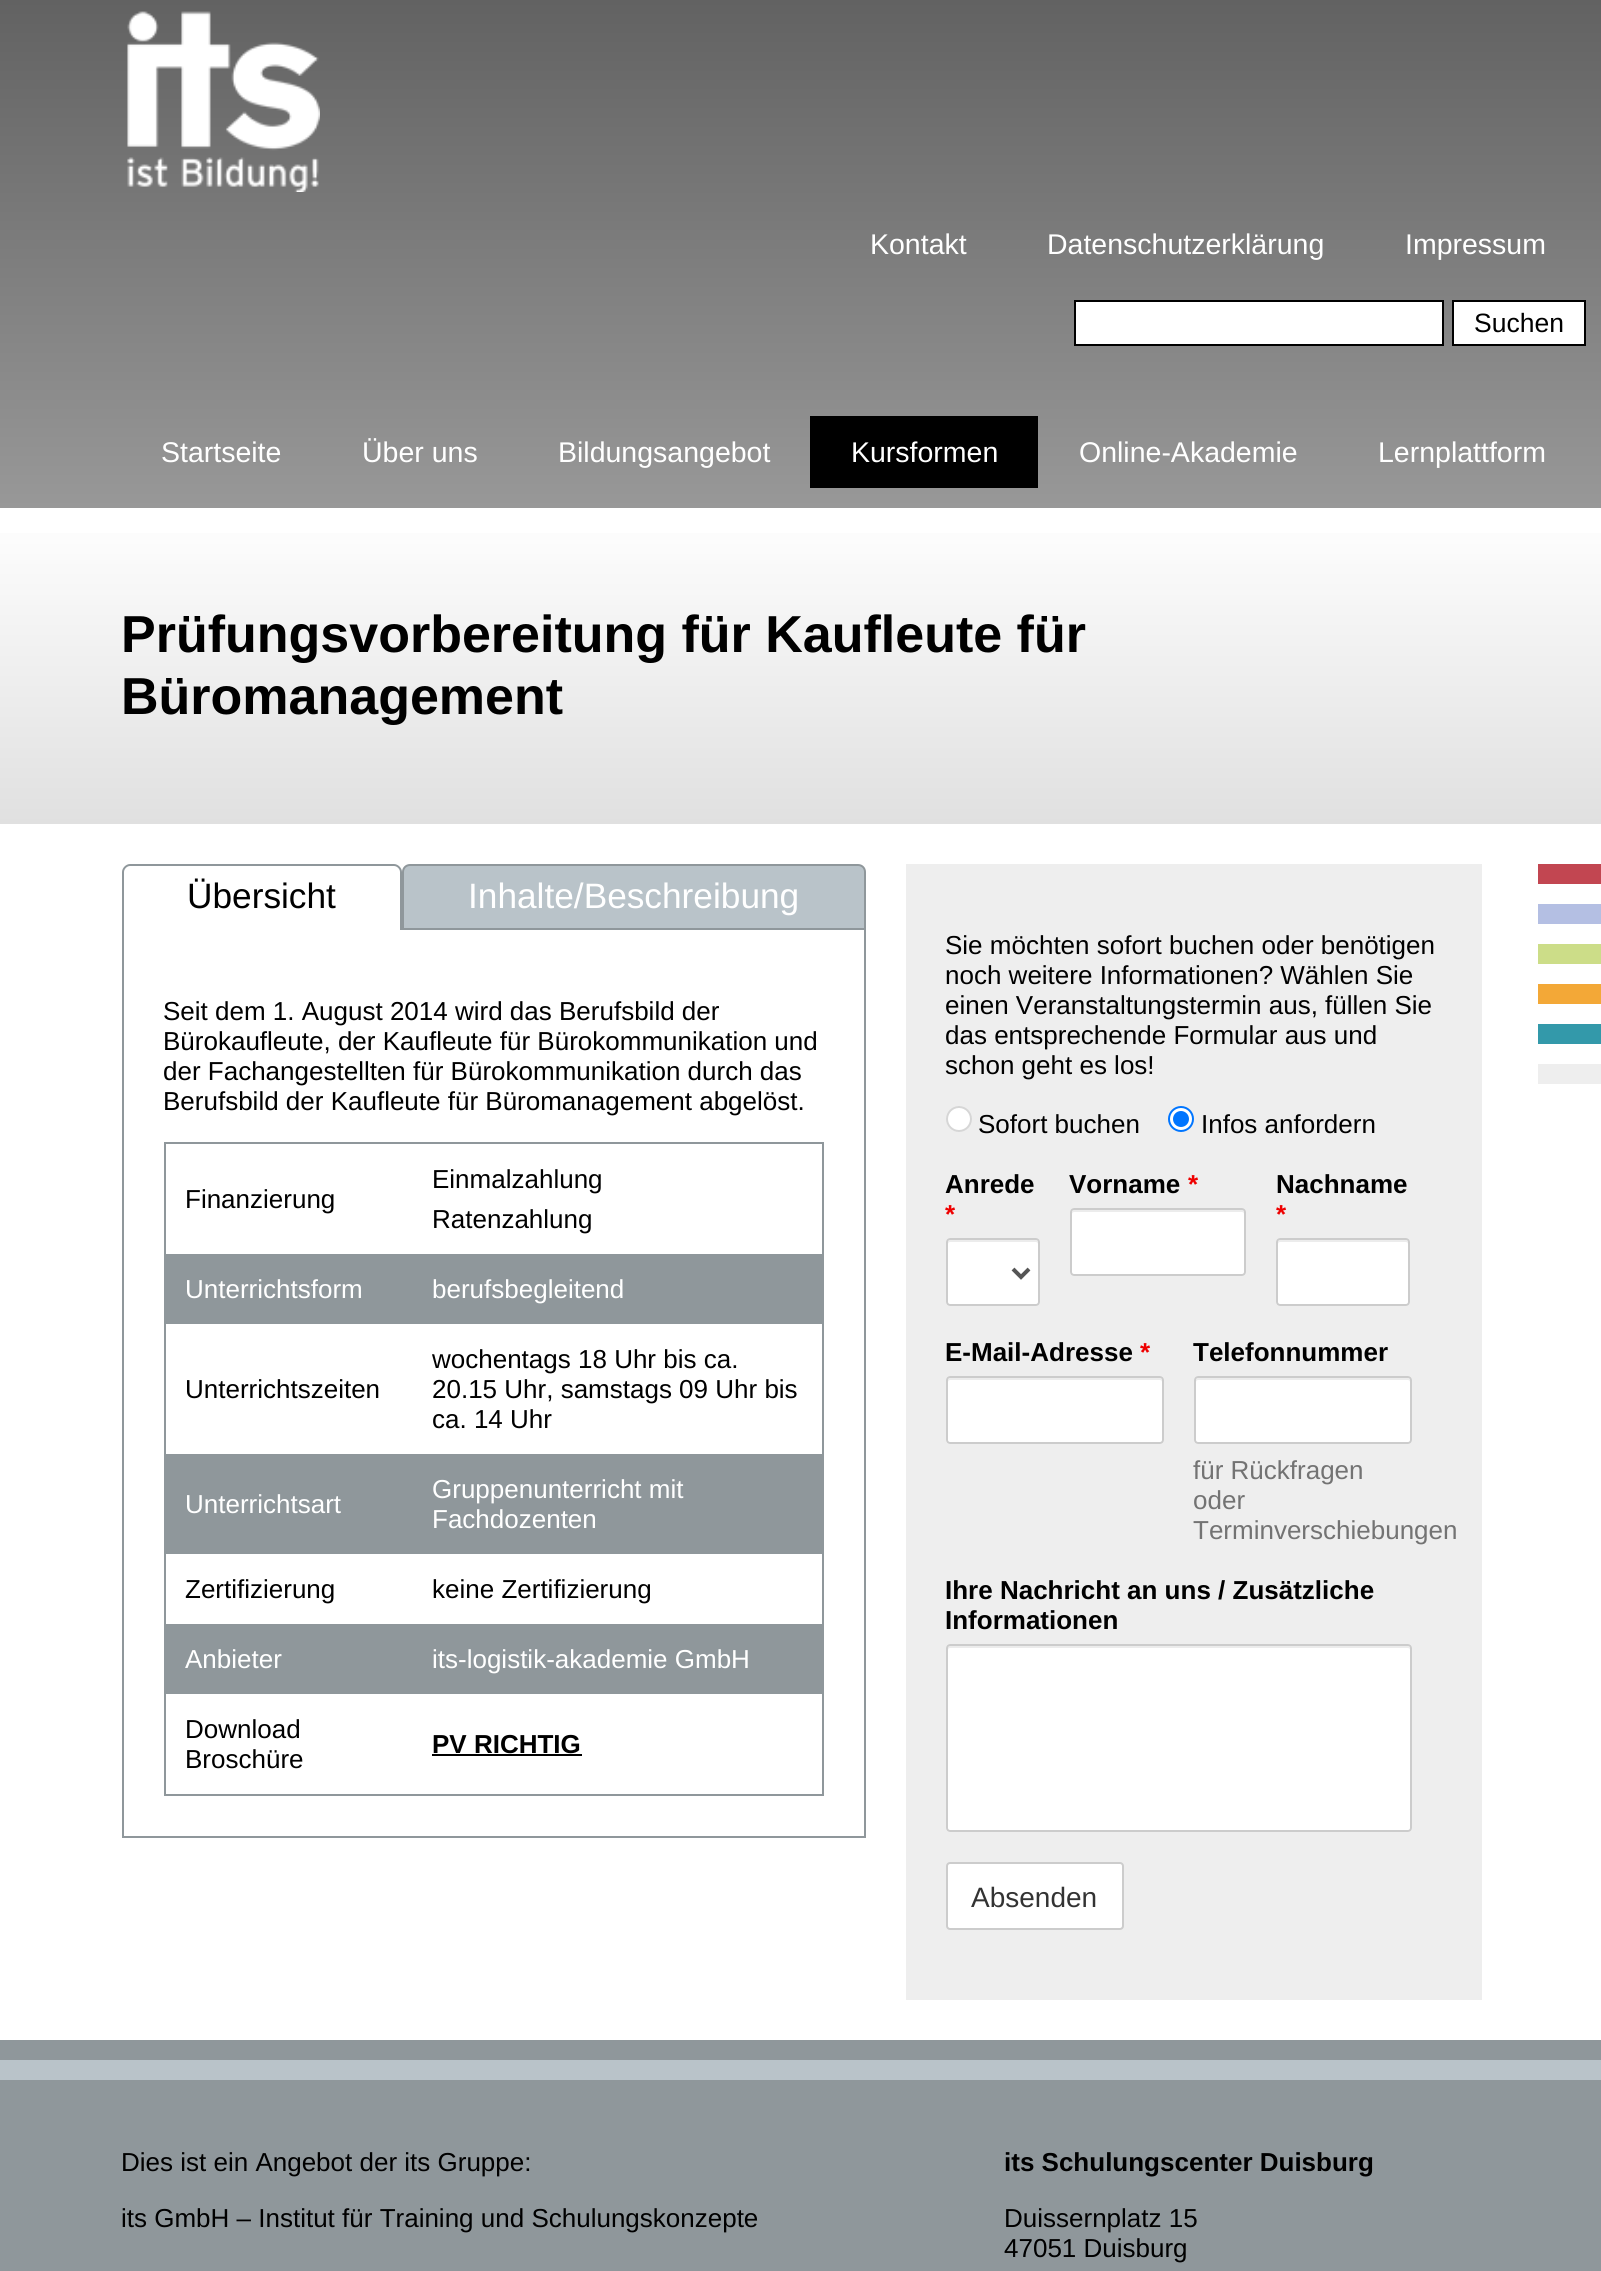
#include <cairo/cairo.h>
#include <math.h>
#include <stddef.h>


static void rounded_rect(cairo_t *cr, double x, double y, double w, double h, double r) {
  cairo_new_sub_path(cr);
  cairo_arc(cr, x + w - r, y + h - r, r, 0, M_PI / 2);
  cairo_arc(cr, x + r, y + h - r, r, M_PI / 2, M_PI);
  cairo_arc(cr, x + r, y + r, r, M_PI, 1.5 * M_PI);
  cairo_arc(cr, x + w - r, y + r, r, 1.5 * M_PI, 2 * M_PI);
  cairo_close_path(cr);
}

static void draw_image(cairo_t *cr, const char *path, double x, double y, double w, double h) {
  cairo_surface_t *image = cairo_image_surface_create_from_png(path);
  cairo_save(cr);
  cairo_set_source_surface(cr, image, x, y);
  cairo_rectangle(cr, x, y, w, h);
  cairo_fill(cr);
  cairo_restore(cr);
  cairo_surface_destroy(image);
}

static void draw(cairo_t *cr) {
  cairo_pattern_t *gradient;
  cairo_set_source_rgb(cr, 1, 1, 1);
  cairo_paint(cr);
  gradient = cairo_pattern_create_linear(801, 0, 801, 508);
  cairo_pattern_add_color_stop_rgba(gradient, 0, 98 / 255.0, 98 / 255.0, 98 / 255.0, 1);
  cairo_pattern_add_color_stop_rgba(gradient, 1, 152 / 255.0, 152 / 255.0, 152 / 255.0, 1);
  cairo_set_source(cr, gradient);
  cairo_pattern_destroy(gradient);
  cairo_rectangle(cr, 0, 0, 1601, 508);
  cairo_fill(cr);
  draw_image(cr, "images/1.png", 127, 11, 193, 181);
  cairo_set_source_rgb(cr, 1, 1, 1);
  cairo_rectangle(cr, 1075, 301, 368, 44);
  cairo_fill_preserve(cr);
  cairo_set_source_rgb(cr, 0, 0, 0);
  cairo_stroke(cr);
  cairo_set_source_rgb(cr, 1, 1, 1);
  cairo_rectangle(cr, 1453, 301, 132, 44);
  cairo_fill_preserve(cr);
  cairo_set_source_rgb(cr, 0, 0, 0);
  cairo_stroke(cr);
  cairo_rectangle(cr, 810, 416, 228, 72);
  cairo_fill(cr);
  gradient = cairo_pattern_create_linear(801, 508, 801, 824);
  cairo_pattern_add_color_stop_rgba(gradient, 0, 1, 1, 1, 1);
  cairo_pattern_add_color_stop_rgba(gradient, 1, 224 / 255.0, 224 / 255.0, 224 / 255.0, 1);
  cairo_set_source(cr, gradient);
  cairo_pattern_destroy(gradient);
  cairo_rectangle(cr, 0, 533, 1601, 291);
  cairo_fill(cr);
  cairo_set_source_rgb(cr, 143 / 255.0, 151 / 255.0, 155 / 255.0);
  cairo_set_fill_rule(cr, CAIRO_FILL_RULE_EVEN_ODD);
  cairo_new_path(cr);
  cairo_move_to(cr, 130, 864);
  cairo_line_to(cr, 394, 864);
  cairo_curve_to(cr, 398, 864, 402, 868, 402, 872);
  cairo_line_to(cr, 402, 930);
  cairo_line_to(cr, 122, 930);
  cairo_line_to(cr, 122, 872);
  cairo_curve_to(cr, 122, 868, 126, 864, 130, 864);
  cairo_close_path(cr);
  cairo_move_to(cr, 130, 866);
  cairo_line_to(cr, 394, 866);
  cairo_curve_to(cr, 397, 866, 400, 869, 400, 872);
  cairo_line_to(cr, 400, 930);
  cairo_line_to(cr, 124, 930);
  cairo_line_to(cr, 124, 872);
  cairo_curve_to(cr, 124, 869, 127, 866, 130, 866);
  cairo_close_path(cr);
  cairo_fill(cr);
  cairo_set_source_rgb(cr, 185 / 255.0, 195 / 255.0, 201 / 255.0);
  cairo_new_path(cr);
  cairo_move_to(cr, 410, 865);
  cairo_line_to(cr, 858, 865);
  cairo_curve_to(cr, 862, 865, 865, 868, 865, 872);
  cairo_line_to(cr, 865, 929);
  cairo_line_to(cr, 403, 929);
  cairo_line_to(cr, 403, 872);
  cairo_curve_to(cr, 403, 868, 406, 865, 410, 865);
  cairo_close_path(cr);
  cairo_fill_preserve(cr);
  cairo_set_source_rgb(cr, 143 / 255.0, 151 / 255.0, 155 / 255.0);
  cairo_stroke(cr);
  cairo_rectangle(cr, 864, 930, 2, 908);
  cairo_fill(cr);
  cairo_rectangle(cr, 122, 1836, 744, 2);
  cairo_fill(cr);
  cairo_rectangle(cr, 122, 930, 2, 908);
  cairo_fill(cr);
  cairo_rectangle(cr, 164, 1142, 660, 2);
  cairo_fill(cr);
  cairo_rectangle(cr, 822, 1142, 2, 654);
  cairo_fill(cr);
  cairo_rectangle(cr, 164, 1794, 660, 2);
  cairo_fill(cr);
  cairo_rectangle(cr, 164, 1142, 2, 654);
  cairo_fill(cr);
  cairo_rectangle(cr, 166, 1254, 656, 70);
  cairo_fill(cr);
  cairo_rectangle(cr, 166, 1454, 656, 100);
  cairo_fill(cr);
  cairo_rectangle(cr, 166, 1624, 656, 70);
  cairo_fill(cr);
  cairo_set_source_rgb(cr, 0, 0, 0);
  cairo_rectangle(cr, 432, 1754, 150, 2);
  cairo_fill(cr);
  cairo_set_source_rgb(cr, 238 / 255.0, 238 / 255.0, 238 / 255.0);
  cairo_rectangle(cr, 906, 864, 576, 1136);
  cairo_fill(cr);
  cairo_set_source_rgb(cr, 1, 1, 1);
  cairo_arc(cr, 959, 1119, 13, 0, 2 * M_PI);
  cairo_fill(cr);
  cairo_arc(cr, 959, 1119, 12, 0, 2 * M_PI);
  cairo_set_source_rgba(cr, 118 / 255.0, 118 / 255.0, 118 / 255.0, 0.3);
  cairo_stroke(cr);
  cairo_set_source_rgb(cr, 1, 1, 1);
  cairo_arc(cr, 1181, 1119, 12, 0, 2 * M_PI);
  cairo_fill_preserve(cr);
  cairo_set_source_rgb(cr, 0, 117 / 255.0, 1);
  cairo_stroke(cr);
  cairo_arc(cr, 1181, 1119, 8, 0, 2 * M_PI);
  cairo_fill(cr);
  cairo_set_source_rgb(cr, 1, 1, 1);
  rounded_rect(cr, 946, 1238, 94, 68, 4);
  cairo_fill(cr);
  cairo_set_source_rgb(cr, 236 / 255.0, 236 / 255.0, 236 / 255.0);
  cairo_set_fill_rule(cr, CAIRO_FILL_RULE_WINDING);
  cairo_new_path(cr);
  cairo_move_to(cr, 950, 1242);
  cairo_line_to(cr, 1036, 1242);
  cairo_curve_to(cr, 1037, 1242, 1038, 1243, 1038, 1244);
  cairo_line_to(cr, 1038, 1242);
  cairo_curve_to(cr, 1038, 1241, 1037, 1240, 1036, 1240);
  cairo_line_to(cr, 950, 1240);
  cairo_curve_to(cr, 949, 1240, 948, 1241, 948, 1242);
  cairo_line_to(cr, 948, 1244);
  cairo_curve_to(cr, 948, 1243, 949, 1242, 950, 1242);
  cairo_close_path(cr);
  cairo_fill(cr);
  rounded_rect(cr, 947, 1239, 92, 66, 3);
  cairo_set_source_rgb(cr, 204 / 255.0, 204 / 255.0, 204 / 255.0);
  cairo_stroke(cr);
  cairo_new_path(cr);
  cairo_move_to(cr, 1013, 1269);
  cairo_line_to(cr, 1021, 1277);
  cairo_line_to(cr, 1029, 1269);
  cairo_set_source_rgb(cr, 85 / 255.0, 85 / 255.0, 85 / 255.0);
  cairo_set_line_width(cr, 4);
  cairo_stroke(cr);
  cairo_set_source_rgb(cr, 1, 1, 1);
  rounded_rect(cr, 1070, 1208, 176, 68, 4);
  cairo_fill(cr);
  cairo_set_source_rgb(cr, 236 / 255.0, 236 / 255.0, 236 / 255.0);
  cairo_new_path(cr);
  cairo_move_to(cr, 1074, 1212);
  cairo_line_to(cr, 1242, 1212);
  cairo_curve_to(cr, 1243, 1212, 1244, 1213, 1244, 1214);
  cairo_curve_to(cr, 1244, 1212, 1244, 1210, 1242, 1210);
  cairo_line_to(cr, 1074, 1210);
  cairo_curve_to(cr, 1072, 1210, 1072, 1212, 1072, 1214);
  cairo_curve_to(cr, 1072, 1213, 1073, 1212, 1074, 1212);
  cairo_close_path(cr);
  cairo_fill(cr);
  rounded_rect(cr, 1071, 1209, 174, 66, 3);
  cairo_set_source_rgb(cr, 204 / 255.0, 204 / 255.0, 204 / 255.0);
  cairo_set_line_width(cr, 2);
  cairo_stroke(cr);
  cairo_set_source_rgb(cr, 1, 1, 1);
  rounded_rect(cr, 1276, 1238, 134, 68, 4);
  cairo_fill(cr);
  cairo_set_source_rgb(cr, 236 / 255.0, 236 / 255.0, 236 / 255.0);
  cairo_new_path(cr);
  cairo_move_to(cr, 1280, 1242);
  cairo_line_to(cr, 1406, 1242);
  cairo_curve_to(cr, 1407, 1242, 1408, 1243, 1408, 1244);
  cairo_line_to(cr, 1408, 1242);
  cairo_curve_to(cr, 1408, 1241, 1407, 1240, 1406, 1240);
  cairo_line_to(cr, 1280, 1240);
  cairo_curve_to(cr, 1279, 1240, 1278, 1241, 1278, 1242);
  cairo_line_to(cr, 1278, 1244);
  cairo_curve_to(cr, 1278, 1243, 1279, 1242, 1280, 1242);
  cairo_close_path(cr);
  cairo_fill(cr);
  rounded_rect(cr, 1277, 1239, 132, 66, 3);
  cairo_set_source_rgb(cr, 204 / 255.0, 204 / 255.0, 204 / 255.0);
  cairo_stroke(cr);
  cairo_set_source_rgb(cr, 1, 1, 1);
  rounded_rect(cr, 946, 1376, 218, 68, 4);
  cairo_fill(cr);
  cairo_set_source_rgb(cr, 236 / 255.0, 236 / 255.0, 236 / 255.0);
  cairo_new_path(cr);
  cairo_move_to(cr, 950, 1380);
  cairo_line_to(cr, 1160, 1380);
  cairo_curve_to(cr, 1161, 1380, 1162, 1381, 1162, 1382);
  cairo_line_to(cr, 1162, 1380);
  cairo_curve_to(cr, 1162, 1379, 1161, 1378, 1160, 1378);
  cairo_line_to(cr, 950, 1378);
  cairo_curve_to(cr, 949, 1378, 948, 1379, 948, 1380);
  cairo_line_to(cr, 948, 1382);
  cairo_curve_to(cr, 948, 1381, 949, 1380, 950, 1380);
  cairo_close_path(cr);
  cairo_fill(cr);
  rounded_rect(cr, 947, 1377, 216, 66, 3);
  cairo_set_source_rgb(cr, 204 / 255.0, 204 / 255.0, 204 / 255.0);
  cairo_stroke(cr);
  cairo_set_source_rgb(cr, 1, 1, 1);
  rounded_rect(cr, 1194, 1376, 218, 68, 4);
  cairo_fill(cr);
  cairo_set_source_rgb(cr, 236 / 255.0, 236 / 255.0, 236 / 255.0);
  cairo_new_path(cr);
  cairo_move_to(cr, 1198, 1380);
  cairo_line_to(cr, 1408, 1380);
  cairo_curve_to(cr, 1409, 1380, 1410, 1381, 1410, 1382);
  cairo_line_to(cr, 1410, 1380);
  cairo_curve_to(cr, 1410, 1379, 1409, 1378, 1408, 1378);
  cairo_line_to(cr, 1198, 1378);
  cairo_curve_to(cr, 1197, 1378, 1196, 1379, 1196, 1380);
  cairo_line_to(cr, 1196, 1382);
  cairo_curve_to(cr, 1196, 1381, 1197, 1380, 1198, 1380);
  cairo_close_path(cr);
  cairo_fill(cr);
  rounded_rect(cr, 1195, 1377, 216, 66, 3);
  cairo_set_source_rgb(cr, 204 / 255.0, 204 / 255.0, 204 / 255.0);
  cairo_stroke(cr);
  cairo_set_source_rgb(cr, 1, 1, 1);
  rounded_rect(cr, 946, 1644, 466, 188, 4);
  cairo_fill(cr);
  cairo_set_source_rgb(cr, 236 / 255.0, 236 / 255.0, 236 / 255.0);
  cairo_new_path(cr);
  cairo_move_to(cr, 950, 1648);
  cairo_line_to(cr, 1408, 1648);
  cairo_curve_to(cr, 1409, 1648, 1410, 1649, 1410, 1650);
  cairo_curve_to(cr, 1410, 1648, 1410, 1646, 1408, 1646);
  cairo_line_to(cr, 949, 1646);
  cairo_line_to(cr, 948, 1647);
  cairo_line_to(cr, 948, 1650);
  cairo_curve_to(cr, 948, 1649, 949, 1648, 950, 1648);
  cairo_close_path(cr);
  cairo_fill(cr);
  rounded_rect(cr, 947, 1645, 464, 186, 3);
  cairo_set_source_rgb(cr, 204 / 255.0, 204 / 255.0, 204 / 255.0);
  cairo_stroke(cr);
  cairo_set_source_rgb(cr, 1, 1, 1);
  rounded_rect(cr, 947, 1863, 176, 66, 3);
  cairo_fill_preserve(cr);
  cairo_set_source_rgb(cr, 204 / 255.0, 204 / 255.0, 204 / 255.0);
  cairo_stroke(cr);
  cairo_set_source_rgb(cr, 194 / 255.0, 70 / 255.0, 81 / 255.0);
  cairo_rectangle(cr, 1538, 864, 63, 20);
  cairo_fill(cr);
  cairo_set_source_rgb(cr, 180 / 255.0, 191 / 255.0, 227 / 255.0);
  cairo_rectangle(cr, 1538, 904, 63, 20);
  cairo_fill(cr);
  cairo_set_source_rgb(cr, 204 / 255.0, 221 / 255.0, 136 / 255.0);
  cairo_rectangle(cr, 1538, 944, 63, 20);
  cairo_fill(cr);
  cairo_set_source_rgb(cr, 243 / 255.0, 168 / 255.0, 55 / 255.0);
  cairo_rectangle(cr, 1538, 984, 63, 20);
  cairo_fill(cr);
  cairo_set_source_rgb(cr, 51 / 255.0, 153 / 255.0, 170 / 255.0);
  cairo_rectangle(cr, 1538, 1024, 63, 20);
  cairo_fill(cr);
  cairo_set_source_rgb(cr, 238 / 255.0, 238 / 255.0, 238 / 255.0);
  cairo_rectangle(cr, 1538, 1064, 63, 20);
  cairo_fill(cr);
  cairo_set_source_rgb(cr, 143 / 255.0, 151 / 255.0, 155 / 255.0);
  cairo_rectangle(cr, 0, 2040, 1601, 231);
  cairo_fill(cr);
  cairo_set_source_rgb(cr, 185 / 255.0, 195 / 255.0, 201 / 255.0);
  cairo_rectangle(cr, 0, 2060, 1601, 20);
  cairo_fill(cr);
  cairo_select_font_face(cr, "Liberation Sans", CAIRO_FONT_SLANT_NORMAL, CAIRO_FONT_WEIGHT_NORMAL);
  cairo_set_font_size(cr, 28.5);
  cairo_set_source_rgb(cr, 1, 1, 1);
  cairo_move_to(cr, 870, 254);
  cairo_show_text(cr, "Kontakt");
  cairo_move_to(cr, 1047, 254);
  cairo_show_text(cr, "Datenschutzerklärung");
  cairo_move_to(cr, 1405, 254);
  cairo_show_text(cr, "Impressum");
  cairo_set_font_size(cr, 26.5);
  cairo_set_source_rgb(cr, 0, 0, 0);
  cairo_move_to(cr, 1474, 332);
  cairo_show_text(cr, "Suchen");
  cairo_set_font_size(cr, 28.5);
  cairo_set_source_rgb(cr, 1, 1, 1);
  cairo_move_to(cr, 161, 462);
  cairo_show_text(cr, "Startseite");
  cairo_move_to(cr, 362, 462);
  cairo_show_text(cr, "Über uns");
  cairo_move_to(cr, 558, 462);
  cairo_show_text(cr, "Bildungsangebot");
  cairo_move_to(cr, 851, 462);
  cairo_show_text(cr, "Kursformen");
  cairo_move_to(cr, 1079, 462);
  cairo_show_text(cr, "Online-Akademie");
  cairo_move_to(cr, 1378, 462);
  cairo_show_text(cr, "Lernplattform");
  cairo_select_font_face(cr, "Liberation Sans", CAIRO_FONT_SLANT_NORMAL, CAIRO_FONT_WEIGHT_BOLD);
  cairo_set_font_size(cr, 52);
  cairo_set_source_rgb(cr, 0, 0, 0);
  cairo_move_to(cr, 121, 652);
  cairo_show_text(cr, "Prüfungsvorbereitung für Kaufleute für");
  cairo_move_to(cr, 121, 714);
  cairo_show_text(cr, "Büromanagement");
  cairo_select_font_face(cr, "Liberation Sans", CAIRO_FONT_SLANT_NORMAL, CAIRO_FONT_WEIGHT_NORMAL);
  cairo_set_font_size(cr, 35.25);
  cairo_move_to(cr, 187, 908);
  cairo_show_text(cr, "Übersicht");
  cairo_set_source_rgb(cr, 1, 1, 1);
  cairo_move_to(cr, 468, 908);
  cairo_show_text(cr, "Inhalte/Beschreibung");
  cairo_set_font_size(cr, 26);
  cairo_set_source_rgb(cr, 0, 0, 0);
  cairo_move_to(cr, 163, 1020);
  cairo_show_text(cr, "Seit dem 1. August 2014 wird das Berufsbild der");
  cairo_move_to(cr, 163, 1050);
  cairo_show_text(cr, "Bürokaufleute, der Kaufleute für Bürokommunikation und");
  cairo_move_to(cr, 163, 1080);
  cairo_show_text(cr, "der Fachangestellten für Bürokommunikation durch das");
  cairo_move_to(cr, 163, 1110);
  cairo_show_text(cr, "Berufsbild der Kaufleute für Büromanagement abgelöst.");
  cairo_move_to(cr, 185, 1208);
  cairo_show_text(cr, "Finanzierung");
  cairo_move_to(cr, 432, 1188);
  cairo_show_text(cr, "Einmalzahlung");
  cairo_move_to(cr, 432, 1228);
  cairo_show_text(cr, "Ratenzahlung");
  cairo_set_source_rgb(cr, 1, 1, 1);
  cairo_move_to(cr, 185, 1298);
  cairo_show_text(cr, "Unterrichtsform");
  cairo_move_to(cr, 432, 1298);
  cairo_show_text(cr, "berufsbegleitend");
  cairo_set_source_rgb(cr, 0, 0, 0);
  cairo_move_to(cr, 185, 1398);
  cairo_show_text(cr, "Unterrichtszeiten");
  cairo_move_to(cr, 432, 1368);
  cairo_show_text(cr, "wochentags 18 Uhr bis ca.");
  cairo_move_to(cr, 432, 1398);
  cairo_show_text(cr, "20.15 Uhr, samstags 09 Uhr bis");
  cairo_move_to(cr, 432, 1428);
  cairo_show_text(cr, "ca. 14 Uhr");
  cairo_set_source_rgb(cr, 1, 1, 1);
  cairo_move_to(cr, 185, 1513);
  cairo_show_text(cr, "Unterrichtsart");
  cairo_move_to(cr, 432, 1498);
  cairo_show_text(cr, "Gruppenunterricht mit");
  cairo_move_to(cr, 432, 1528);
  cairo_show_text(cr, "Fachdozenten");
  cairo_set_source_rgb(cr, 0, 0, 0);
  cairo_move_to(cr, 185, 1598);
  cairo_show_text(cr, "Zertifizierung");
  cairo_move_to(cr, 432, 1598);
  cairo_show_text(cr, "keine Zertifizierung");
  cairo_set_source_rgb(cr, 1, 1, 1);
  cairo_move_to(cr, 185, 1668);
  cairo_show_text(cr, "Anbieter");
  cairo_move_to(cr, 432, 1668);
  cairo_show_text(cr, "its-logistik-akademie GmbH");
  cairo_set_source_rgb(cr, 0, 0, 0);
  cairo_move_to(cr, 185, 1738);
  cairo_show_text(cr, "Download");
  cairo_move_to(cr, 185, 1768);
  cairo_show_text(cr, "Broschüre");
  cairo_select_font_face(cr, "Liberation Sans", CAIRO_FONT_SLANT_NORMAL, CAIRO_FONT_WEIGHT_BOLD);
  cairo_move_to(cr, 432, 1753);
  cairo_show_text(cr, "PV RICHTIG");
  cairo_select_font_face(cr, "Liberation Sans", CAIRO_FONT_SLANT_NORMAL, CAIRO_FONT_WEIGHT_NORMAL);
  cairo_move_to(cr, 945, 954);
  cairo_show_text(cr, "Sie möchten sofort buchen oder benötigen");
  cairo_move_to(cr, 945, 984);
  cairo_show_text(cr, "noch weitere Informationen? Wählen Sie");
  cairo_move_to(cr, 945, 1014);
  cairo_show_text(cr, "einen Veranstaltungstermin aus, füllen Sie");
  cairo_move_to(cr, 945, 1044);
  cairo_show_text(cr, "das entsprechende Formular aus und");
  cairo_move_to(cr, 945, 1074);
  cairo_show_text(cr, "schon geht es los!");
  cairo_move_to(cr, 978, 1133);
  cairo_show_text(cr, "Sofort buchen");
  cairo_move_to(cr, 1201, 1133);
  cairo_show_text(cr, "Infos anfordern");
  cairo_select_font_face(cr, "Liberation Sans", CAIRO_FONT_SLANT_NORMAL, CAIRO_FONT_WEIGHT_BOLD);
  cairo_move_to(cr, 945, 1193);
  cairo_show_text(cr, "Anrede");
  cairo_set_source_rgb(cr, 238 / 255.0, 0, 0);
  cairo_move_to(cr, 945, 1223);
  cairo_show_text(cr, "*");
  cairo_set_source_rgb(cr, 0, 0, 0);
  cairo_move_to(cr, 1069, 1193);
  cairo_show_text(cr, "Vorname");
  cairo_set_source_rgb(cr, 238 / 255.0, 0, 0);
  cairo_move_to(cr, 1188, 1193);
  cairo_show_text(cr, "*");
  cairo_set_source_rgb(cr, 0, 0, 0);
  cairo_move_to(cr, 1276, 1193);
  cairo_show_text(cr, "Nachname");
  cairo_set_source_rgb(cr, 238 / 255.0, 0, 0);
  cairo_move_to(cr, 1276, 1223);
  cairo_show_text(cr, "*");
  cairo_set_source_rgb(cr, 0, 0, 0);
  cairo_move_to(cr, 945, 1361);
  cairo_show_text(cr, "E-Mail-Adresse");
  cairo_set_source_rgb(cr, 238 / 255.0, 0, 0);
  cairo_move_to(cr, 1140, 1361);
  cairo_show_text(cr, "*");
  cairo_set_source_rgb(cr, 0, 0, 0);
  cairo_move_to(cr, 1193, 1361);
  cairo_show_text(cr, "Telefonnummer");
  cairo_select_font_face(cr, "Liberation Sans", CAIRO_FONT_SLANT_NORMAL, CAIRO_FONT_WEIGHT_NORMAL);
  cairo_set_source_rgb(cr, 115 / 255.0, 115 / 255.0, 115 / 255.0);
  cairo_move_to(cr, 1193, 1479);
  cairo_show_text(cr, "für Rückfragen");
  cairo_move_to(cr, 1193, 1509);
  cairo_show_text(cr, "oder");
  cairo_move_to(cr, 1193, 1539);
  cairo_show_text(cr, "Terminverschiebungen");
  cairo_select_font_face(cr, "Liberation Sans", CAIRO_FONT_SLANT_NORMAL, CAIRO_FONT_WEIGHT_BOLD);
  cairo_set_source_rgb(cr, 0, 0, 0);
  cairo_move_to(cr, 945, 1599);
  cairo_show_text(cr, "Ihre Nachricht an uns / Zusätzliche");
  cairo_move_to(cr, 945, 1629);
  cairo_show_text(cr, "Informationen");
  cairo_select_font_face(cr, "Liberation Sans", CAIRO_FONT_SLANT_NORMAL, CAIRO_FONT_WEIGHT_NORMAL);
  cairo_set_font_size(cr, 28);
  cairo_set_source_rgb(cr, 51 / 255.0, 51 / 255.0, 51 / 255.0);
  cairo_move_to(cr, 971, 1907);
  cairo_show_text(cr, "Absenden");
  cairo_set_font_size(cr, 26);
  cairo_set_source_rgb(cr, 0, 0, 0);
  cairo_move_to(cr, 121, 2171);
  cairo_show_text(cr, "Dies ist ein Angebot der its Gruppe:");
  cairo_move_to(cr, 121, 2227);
  cairo_show_text(cr, "its GmbH – Institut für Training und Schulungskonzepte");
  cairo_select_font_face(cr, "Liberation Sans", CAIRO_FONT_SLANT_NORMAL, CAIRO_FONT_WEIGHT_BOLD);
  cairo_move_to(cr, 1004, 2171);
  cairo_show_text(cr, "its Schulungscenter Duisburg");
  cairo_select_font_face(cr, "Liberation Sans", CAIRO_FONT_SLANT_NORMAL, CAIRO_FONT_WEIGHT_NORMAL);
  cairo_move_to(cr, 1004, 2227);
  cairo_show_text(cr, "Duissernplatz 15");
  cairo_move_to(cr, 1004, 2257);
  cairo_show_text(cr, "47051 Duisburg");
}

int main(void) {
  cairo_surface_t *surface = cairo_image_surface_create(CAIRO_FORMAT_RGB24, 1601, 2271);
  cairo_t *cr = cairo_create(surface);
  cairo_font_options_t *options = cairo_font_options_create();
  cairo_font_options_set_hint_metrics(options, CAIRO_HINT_METRICS_OFF);
  cairo_font_options_set_hint_style(options, CAIRO_HINT_STYLE_NONE);
  cairo_set_font_options(cr, options);
  cairo_set_miter_limit(cr, 4);
  draw(cr);
  cairo_surface_write_to_png(surface, "out.png");
  cairo_font_options_destroy(options);
  cairo_destroy(cr);
  cairo_surface_destroy(surface);
  return 0;
}
